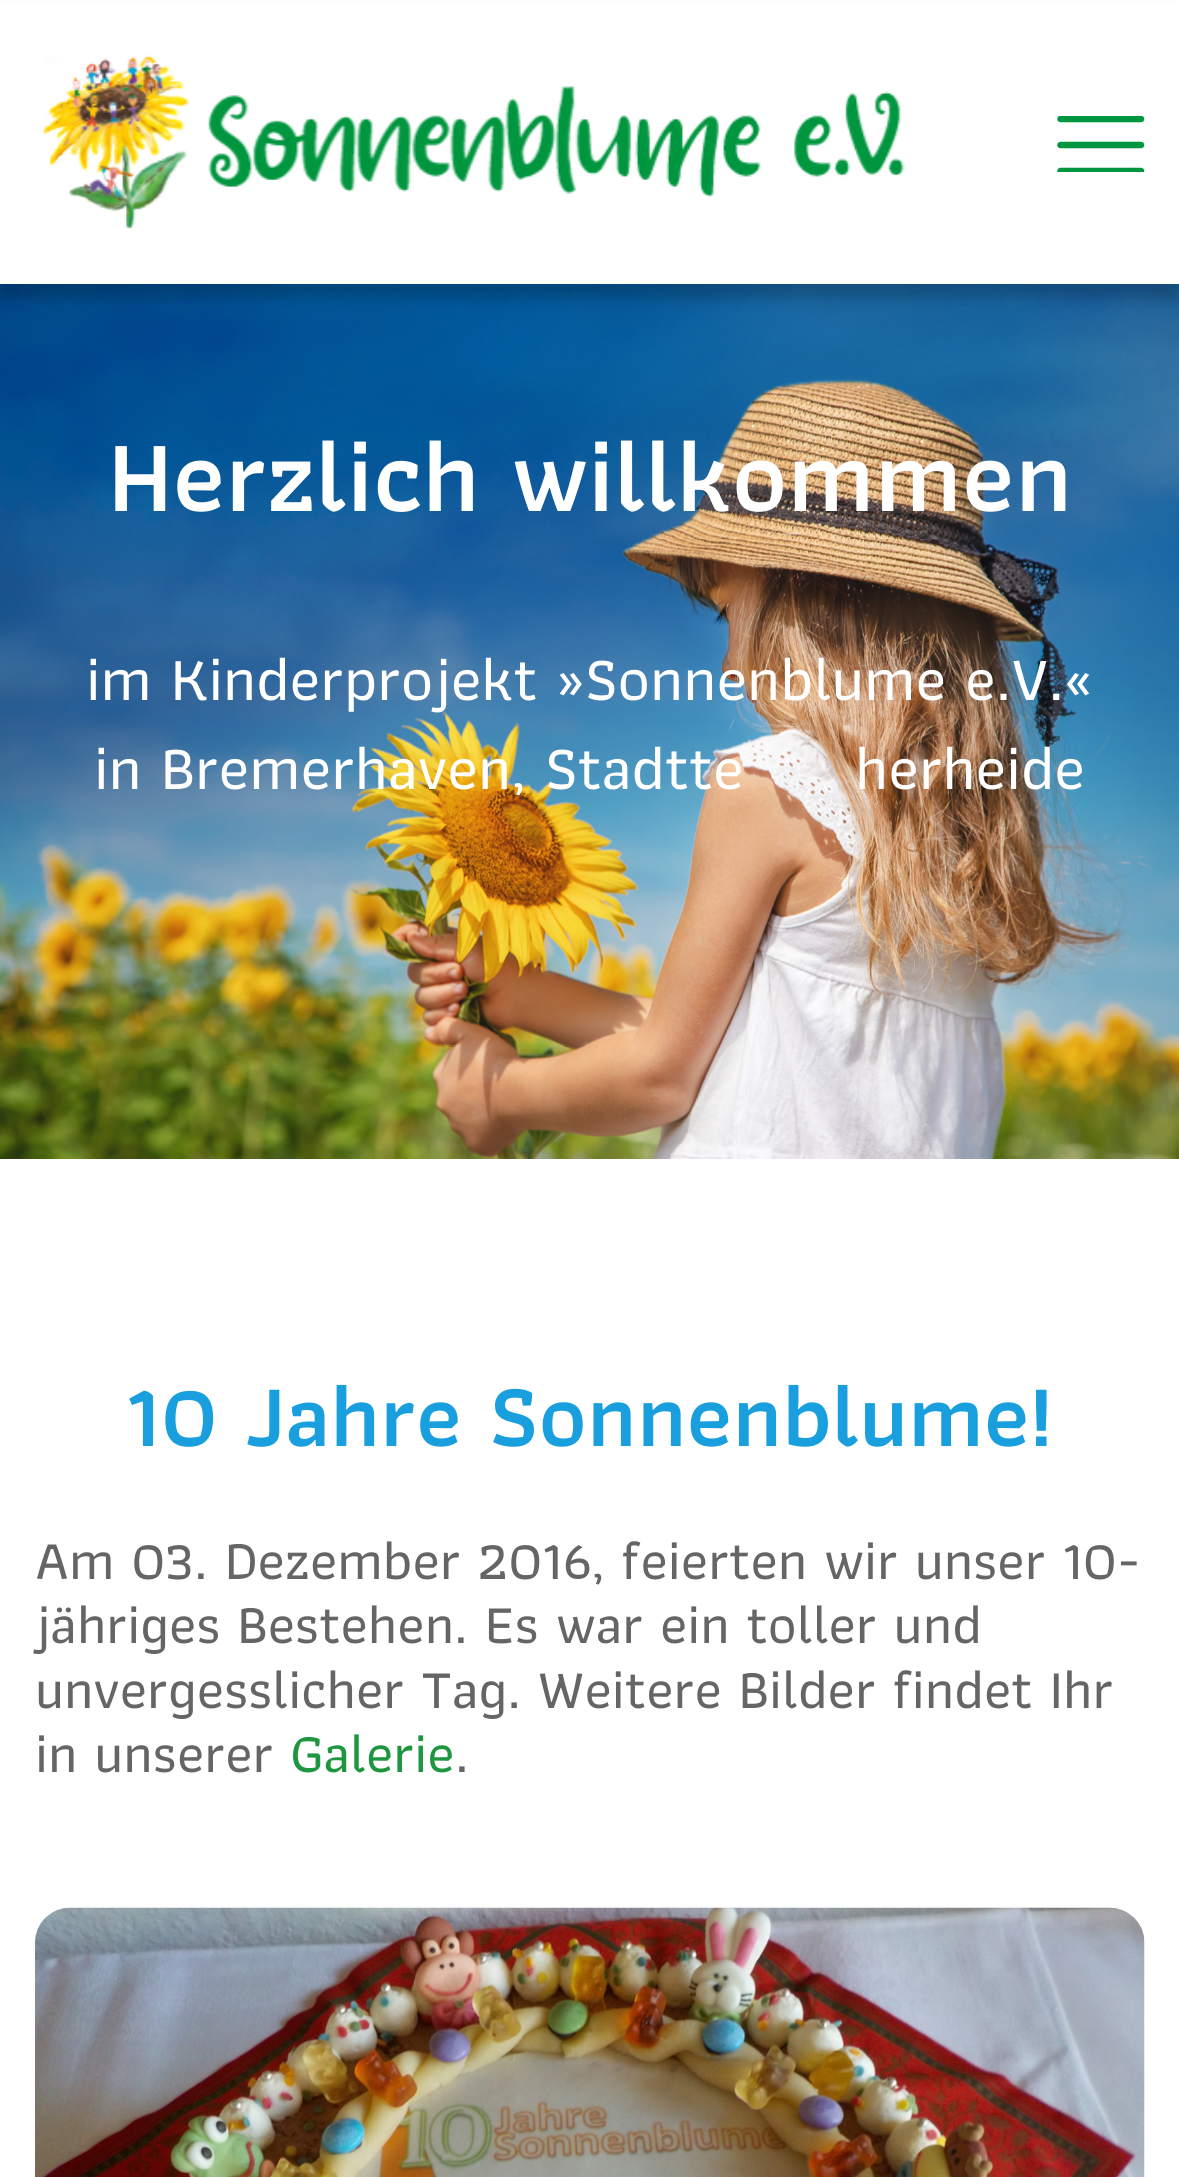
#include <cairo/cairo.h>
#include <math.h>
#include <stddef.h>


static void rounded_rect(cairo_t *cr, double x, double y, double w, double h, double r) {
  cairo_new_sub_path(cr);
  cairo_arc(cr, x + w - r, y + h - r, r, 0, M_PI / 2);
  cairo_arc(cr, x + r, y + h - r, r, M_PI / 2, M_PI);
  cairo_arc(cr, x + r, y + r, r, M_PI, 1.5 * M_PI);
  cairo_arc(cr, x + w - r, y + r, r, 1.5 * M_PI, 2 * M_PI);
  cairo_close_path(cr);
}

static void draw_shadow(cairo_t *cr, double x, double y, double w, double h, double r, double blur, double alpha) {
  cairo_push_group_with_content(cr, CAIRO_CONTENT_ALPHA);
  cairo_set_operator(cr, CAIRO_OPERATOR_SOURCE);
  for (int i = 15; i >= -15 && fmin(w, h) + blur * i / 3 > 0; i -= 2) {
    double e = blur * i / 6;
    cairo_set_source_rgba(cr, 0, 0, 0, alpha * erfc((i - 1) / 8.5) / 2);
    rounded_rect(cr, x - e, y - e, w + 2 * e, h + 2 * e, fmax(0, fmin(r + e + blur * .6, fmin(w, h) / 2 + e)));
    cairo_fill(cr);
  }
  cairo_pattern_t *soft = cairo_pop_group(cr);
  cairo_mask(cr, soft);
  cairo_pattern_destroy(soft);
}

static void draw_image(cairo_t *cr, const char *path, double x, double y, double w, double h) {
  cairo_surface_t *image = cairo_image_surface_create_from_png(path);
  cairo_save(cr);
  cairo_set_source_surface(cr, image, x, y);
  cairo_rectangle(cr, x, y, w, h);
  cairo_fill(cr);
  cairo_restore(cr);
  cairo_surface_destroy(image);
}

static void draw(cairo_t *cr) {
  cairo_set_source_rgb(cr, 1, 1, 1);
  cairo_paint(cr);
  draw_image(cr, "images/2.png", 0, 284, 1179, 875);
  cairo_set_source_rgb(cr, 0, 0, 0);
  draw_shadow(cr, 0, 14, 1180, 284, 0, 7, 0.2);
  cairo_set_source_rgb(cr, 1, 1, 1);
  cairo_rectangle(cr, 0, 3, 1179, 281);
  cairo_fill(cr);
  draw_image(cr, "images/1.png", 43, 55, 862, 174);
  cairo_new_path(cr);
  cairo_move_to(cr, 1060.5, 145);
  cairo_line_to(cr, 1141, 145);
  cairo_set_source_rgb(cr, 0, 150 / 255.0, 63 / 255.0);
  cairo_set_line_width(cr, 6.5);
  cairo_set_line_cap(cr, CAIRO_LINE_CAP_ROUND);
  cairo_set_line_join(cr, CAIRO_LINE_JOIN_ROUND);
  cairo_stroke(cr);
  cairo_save(cr);
  cairo_rectangle(cr, 1057, 116, 88, 56);
  cairo_clip(cr);
  cairo_new_path(cr);
  cairo_move_to(cr, 1060.5, 119);
  cairo_line_to(cr, 1141, 119);
  cairo_stroke(cr);
  cairo_new_path(cr);
  cairo_move_to(cr, 1060.5, 171);
  cairo_line_to(cr, 1141, 171);
  cairo_stroke(cr);
  cairo_restore(cr);
  draw_image(cr, "images/3.png", 35, 1907, 1110, 270);
  cairo_select_font_face(cr, "Athiti SemiBold", CAIRO_FONT_SLANT_NORMAL, CAIRO_FONT_WEIGHT_NORMAL);
  cairo_set_font_size(cr, 105);
  cairo_set_source_rgb(cr, 1, 1, 1);
  cairo_move_to(cr, 108, 511);
  cairo_show_text(cr, "Herzlich willkommen");
  cairo_select_font_face(cr, "Athiti Medium", CAIRO_FONT_SLANT_NORMAL, CAIRO_FONT_WEIGHT_NORMAL);
  cairo_set_font_size(cr, 63);
  cairo_move_to(cr, 86, 700);
  cairo_show_text(cr, "im Kinderprojekt »Sonnenblume e.V.«");
  cairo_move_to(cr, 94, 789);
  cairo_show_text(cr, "in Bremerhaven, Stadtte");
  cairo_move_to(cr, 855, 789);
  cairo_show_text(cr, "herheide");
  cairo_select_font_face(cr, "Athiti SemiBold", CAIRO_FONT_SLANT_NORMAL, CAIRO_FONT_WEIGHT_NORMAL);
  cairo_set_font_size(cr, 91);
  cairo_set_source_rgb(cr, 25 / 255.0, 159 / 255.0, 222 / 255.0);
  cairo_move_to(cr, 126, 1446);
  cairo_show_text(cr, "10 Jahre Sonnenblume!");
  cairo_select_font_face(cr, "Athiti Medium", CAIRO_FONT_SLANT_NORMAL, CAIRO_FONT_WEIGHT_NORMAL);
  cairo_set_font_size(cr, 56);
  cairo_set_source_rgb(cr, 101 / 255.0, 101 / 255.0, 102 / 255.0);
  cairo_move_to(cr, 35, 1579);
  cairo_show_text(cr, "Am 03. Dezember 2016, feierten wir unser 10-");
  cairo_move_to(cr, 35, 1643);
  cairo_show_text(cr, "jähriges Bestehen. Es war ein toller und");
  cairo_move_to(cr, 35, 1708);
  cairo_show_text(cr, "unvergesslicher Tag. Weitere Bilder findet Ihr");
  cairo_move_to(cr, 35, 1772);
  cairo_show_text(cr, "in unserer");
  cairo_set_source_rgb(cr, 30 / 255.0, 150 / 255.0, 63 / 255.0);
  cairo_move_to(cr, 290, 1772);
  cairo_show_text(cr, "Galerie");
  cairo_set_source_rgb(cr, 101 / 255.0, 101 / 255.0, 102 / 255.0);
  cairo_move_to(cr, 455, 1772);
  cairo_show_text(cr, ".");
}

int main(void) {
  cairo_surface_t *surface = cairo_image_surface_create(CAIRO_FORMAT_RGB24, 1179, 2177);
  cairo_t *cr = cairo_create(surface);
  cairo_font_options_t *options = cairo_font_options_create();
  cairo_font_options_set_hint_metrics(options, CAIRO_HINT_METRICS_OFF);
  cairo_font_options_set_hint_style(options, CAIRO_HINT_STYLE_NONE);
  cairo_set_font_options(cr, options);
  cairo_set_miter_limit(cr, 4);
  draw(cr);
  cairo_surface_write_to_png(surface, "out.png");
  cairo_font_options_destroy(options);
  cairo_destroy(cr);
  cairo_surface_destroy(surface);
  return 0;
}
